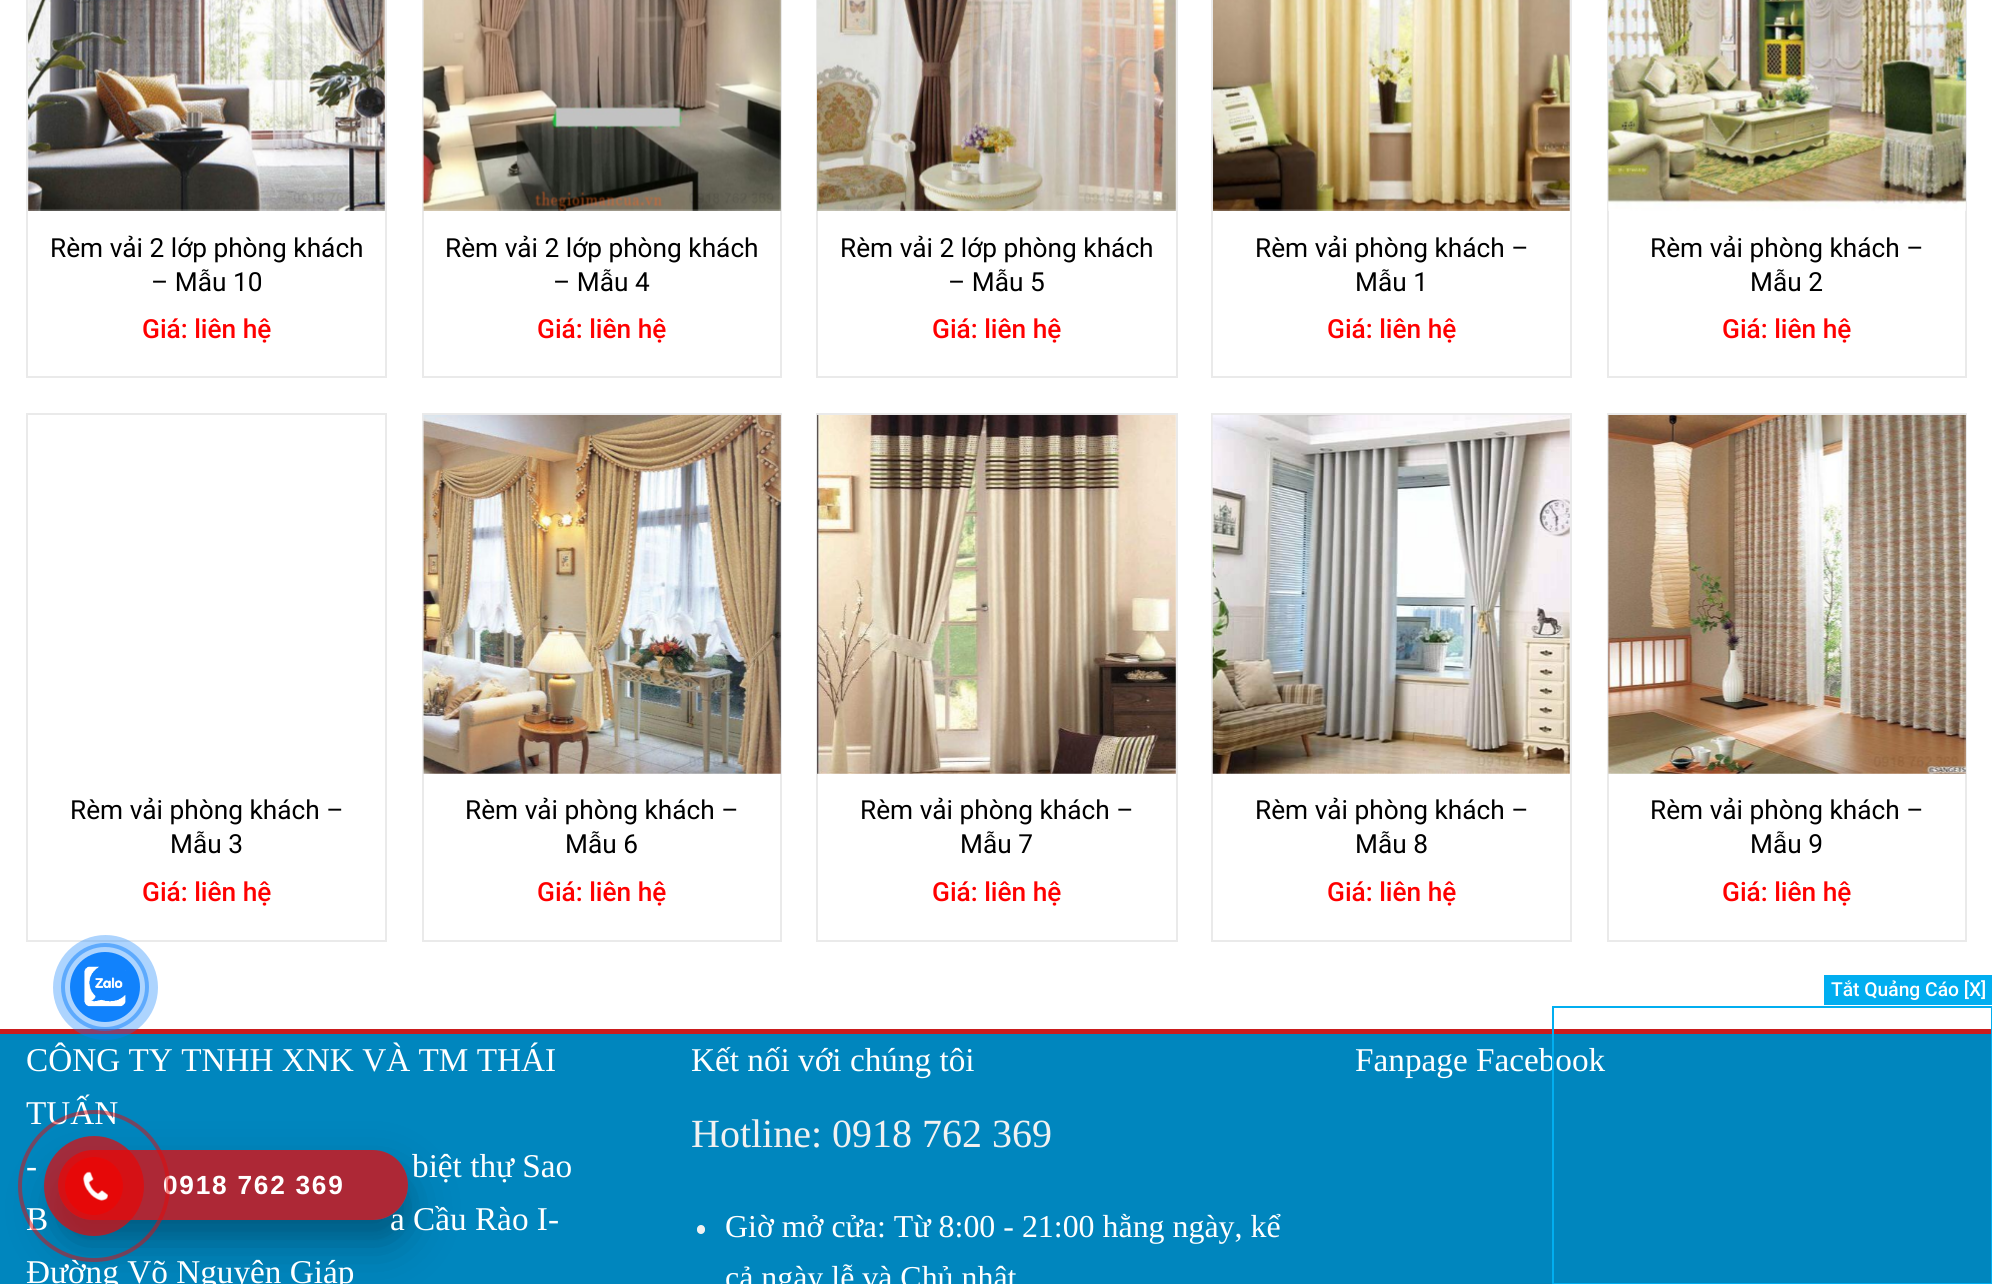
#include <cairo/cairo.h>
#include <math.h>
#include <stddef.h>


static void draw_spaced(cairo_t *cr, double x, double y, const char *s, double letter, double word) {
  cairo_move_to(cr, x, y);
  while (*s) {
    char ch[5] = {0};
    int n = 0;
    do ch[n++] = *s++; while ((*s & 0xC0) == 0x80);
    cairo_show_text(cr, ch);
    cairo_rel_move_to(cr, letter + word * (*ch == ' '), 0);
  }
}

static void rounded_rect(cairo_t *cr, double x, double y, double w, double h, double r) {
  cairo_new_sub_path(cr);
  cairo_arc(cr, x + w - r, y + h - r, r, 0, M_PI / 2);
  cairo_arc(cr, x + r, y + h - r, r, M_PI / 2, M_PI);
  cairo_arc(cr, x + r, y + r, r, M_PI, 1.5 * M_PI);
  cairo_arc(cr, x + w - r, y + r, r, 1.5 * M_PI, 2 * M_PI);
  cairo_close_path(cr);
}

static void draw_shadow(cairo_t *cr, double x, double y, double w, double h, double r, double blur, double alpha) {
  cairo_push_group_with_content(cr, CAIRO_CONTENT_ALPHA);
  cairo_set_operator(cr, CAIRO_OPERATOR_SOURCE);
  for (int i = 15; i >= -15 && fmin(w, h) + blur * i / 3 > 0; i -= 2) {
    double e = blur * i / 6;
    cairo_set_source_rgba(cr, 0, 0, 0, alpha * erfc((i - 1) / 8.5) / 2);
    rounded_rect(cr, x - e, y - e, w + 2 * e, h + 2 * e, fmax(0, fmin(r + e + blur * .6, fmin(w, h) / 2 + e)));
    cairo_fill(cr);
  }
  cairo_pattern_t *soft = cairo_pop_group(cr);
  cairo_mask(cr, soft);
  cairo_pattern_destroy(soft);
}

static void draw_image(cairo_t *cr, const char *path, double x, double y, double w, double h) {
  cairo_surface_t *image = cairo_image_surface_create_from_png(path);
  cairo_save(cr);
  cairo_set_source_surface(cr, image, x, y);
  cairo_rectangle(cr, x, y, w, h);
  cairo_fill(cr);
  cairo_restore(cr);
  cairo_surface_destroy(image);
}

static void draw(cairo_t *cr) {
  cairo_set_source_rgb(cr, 1, 1, 1);
  cairo_paint(cr);
  cairo_rectangle(cr, 27, -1, 359, 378);
  cairo_set_source_rgb(cr, 234 / 255.0, 234 / 255.0, 234 / 255.0);
  cairo_stroke(cr);
  draw_image(cr, "images/1.png", 28, 0, 357, 211);
  cairo_rectangle(cr, 423, -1, 358, 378);
  cairo_stroke(cr);
  draw_image(cr, "images/2.png", 423, 0, 358, 211);
  cairo_rectangle(cr, 817, -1, 360, 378);
  cairo_stroke(cr);
  draw_image(cr, "images/3.png", 817, 0, 359, 211);
  cairo_rectangle(cr, 1212, -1, 359, 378);
  cairo_stroke(cr);
  draw_image(cr, "images/4.png", 1213, 0, 357, 211);
  cairo_rectangle(cr, 1608, -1, 358, 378);
  cairo_stroke(cr);
  draw_image(cr, "images/5.png", 1608, 0, 358, 211);
  cairo_rectangle(cr, 27, 414, 359, 527);
  cairo_stroke(cr);
  cairo_rectangle(cr, 423, 414, 358, 527);
  cairo_stroke(cr);
  draw_image(cr, "images/6.png", 423, 415, 358, 359);
  cairo_rectangle(cr, 817, 414, 360, 527);
  cairo_stroke(cr);
  draw_image(cr, "images/7.png", 817, 415, 359, 359);
  cairo_rectangle(cr, 1212, 414, 359, 527);
  cairo_stroke(cr);
  draw_image(cr, "images/8.png", 1212, 415, 358, 359);
  cairo_rectangle(cr, 1608, 414, 358, 527);
  cairo_stroke(cr);
  draw_image(cr, "images/9.png", 1608, 415, 358, 359);
  cairo_set_source_rgb(cr, 0, 134 / 255.0, 190 / 255.0);
  cairo_rectangle(cr, 0, 1034, 1991, 250);
  cairo_fill(cr);
  cairo_set_source_rgb(cr, 203 / 255.0, 29 / 255.0, 30 / 255.0);
  cairo_rectangle(cr, 0, 1029, 1992, 5);
  cairo_fill(cr);
  cairo_set_source_rgb(cr, 241 / 255.0, 241 / 255.0, 241 / 255.0);
  rounded_rect(cr, 697, 1225, 8, 9, 4);
  cairo_fill(cr);
  cairo_arc(cr, 105, 987, 42, 0, 2 * M_PI);
  cairo_set_source_rgba(cr, 17 / 255.0, 130 / 255.0, 252 / 255.0, 0.5);
  cairo_set_line_width(cr, 4);
  cairo_stroke(cr);
  cairo_set_source_rgba(cr, 17 / 255.0, 130 / 255.0, 252 / 255.0, 0.34);
  cairo_arc(cr, 105.5, 987.5, 52.5, 0, 2 * M_PI);
  cairo_fill(cr);
  cairo_set_source_rgb(cr, 17 / 255.0, 130 / 255.0, 252 / 255.0);
  cairo_arc(cr, 105, 987, 35, 0, 2 * M_PI);
  cairo_fill(cr);
  draw_image(cr, "images/10.png", 84, 966, 42, 41);
  cairo_set_source_rgb(cr, 1 / 255.0, 174 / 255.0, 240 / 255.0);
  cairo_rectangle(cr, 1824, 975, 168, 30);
  cairo_fill(cr);
  cairo_save(cr);
  cairo_set_fill_rule(cr, CAIRO_FILL_RULE_EVEN_ODD);
  cairo_new_path(cr);
  cairo_move_to(cr, 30, 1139);
  cairo_line_to(cr, 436, 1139);
  cairo_line_to(cr, 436, 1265);
  cairo_line_to(cr, 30, 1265);
  cairo_close_path(cr);
  cairo_move_to(cr, 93, 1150);
  cairo_line_to(cr, 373, 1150);
  cairo_curve_to(cr, 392.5, 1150, 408, 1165.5, 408, 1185);
  cairo_curve_to(cr, 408, 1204.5, 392.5, 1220, 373, 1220);
  cairo_line_to(cr, 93, 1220);
  cairo_curve_to(cr, 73.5, 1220, 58, 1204.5, 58, 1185);
  cairo_curve_to(cr, 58, 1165.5, 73.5, 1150, 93, 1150);
  cairo_close_path(cr);
  cairo_clip(cr);
  cairo_set_source_rgb(cr, 0, 0, 0);
  draw_shadow(cr, 58, 1167, 350, 70, 35, 9, 0.1);
  cairo_restore(cr);
  cairo_save(cr);
  cairo_set_fill_rule(cr, CAIRO_FILL_RULE_EVEN_ODD);
  cairo_new_path(cr);
  cairo_move_to(cr, 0, 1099);
  cairo_line_to(cr, 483, 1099);
  cairo_line_to(cr, 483, 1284);
  cairo_line_to(cr, 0, 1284);
  cairo_close_path(cr);
  cairo_move_to(cr, 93, 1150);
  cairo_line_to(cr, 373, 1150);
  cairo_curve_to(cr, 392.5, 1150, 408, 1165.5, 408, 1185);
  cairo_curve_to(cr, 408, 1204.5, 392.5, 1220, 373, 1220);
  cairo_line_to(cr, 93, 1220);
  cairo_curve_to(cr, 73.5, 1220, 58, 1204.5, 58, 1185);
  cairo_curve_to(cr, 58, 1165.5, 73.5, 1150, 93, 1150);
  cairo_close_path(cr);
  cairo_clip(cr);
  cairo_set_source_rgb(cr, 0, 0, 0);
  draw_shadow(cr, 58, 1174, 350, 70, 35, 24.5, 0.25);
  cairo_restore(cr);
  cairo_select_font_face(cr, "Roboto", CAIRO_FONT_SLANT_NORMAL, CAIRO_FONT_WEIGHT_NORMAL);
  cairo_set_font_size(cr, 26.25);
  cairo_set_source_rgb(cr, 0, 0, 0);
  cairo_move_to(cr, 50, 257);
  cairo_show_text(cr, "Rèm vải 2 lớp phòng khách");
  cairo_move_to(cr, 151, 291);
  cairo_show_text(cr, "– Mẫu 10");
  cairo_select_font_face(cr, "Roboto Medium", CAIRO_FONT_SLANT_NORMAL, CAIRO_FONT_WEIGHT_NORMAL);
  cairo_set_source_rgb(cr, 1, 0, 0);
  cairo_move_to(cr, 142, 338);
  cairo_show_text(cr, "Giá: liên hệ");
  cairo_select_font_face(cr, "Roboto", CAIRO_FONT_SLANT_NORMAL, CAIRO_FONT_WEIGHT_NORMAL);
  cairo_set_source_rgb(cr, 0, 0, 0);
  cairo_move_to(cr, 445, 257);
  cairo_show_text(cr, "Rèm vải 2 lớp phòng khách");
  cairo_move_to(cr, 553, 291);
  cairo_show_text(cr, "– Mẫu 4");
  cairo_select_font_face(cr, "Roboto Medium", CAIRO_FONT_SLANT_NORMAL, CAIRO_FONT_WEIGHT_NORMAL);
  cairo_set_source_rgb(cr, 1, 0, 0);
  cairo_move_to(cr, 537, 338);
  cairo_show_text(cr, "Giá: liên hệ");
  cairo_select_font_face(cr, "Roboto", CAIRO_FONT_SLANT_NORMAL, CAIRO_FONT_WEIGHT_NORMAL);
  cairo_set_source_rgb(cr, 0, 0, 0);
  cairo_move_to(cr, 840, 257);
  cairo_show_text(cr, "Rèm vải 2 lớp phòng khách");
  cairo_move_to(cr, 948, 291);
  cairo_show_text(cr, "– Mẫu 5");
  cairo_select_font_face(cr, "Roboto Medium", CAIRO_FONT_SLANT_NORMAL, CAIRO_FONT_WEIGHT_NORMAL);
  cairo_set_source_rgb(cr, 1, 0, 0);
  cairo_move_to(cr, 932, 338);
  cairo_show_text(cr, "Giá: liên hệ");
  cairo_select_font_face(cr, "Roboto", CAIRO_FONT_SLANT_NORMAL, CAIRO_FONT_WEIGHT_NORMAL);
  cairo_set_source_rgb(cr, 0, 0, 0);
  cairo_move_to(cr, 1255, 257);
  cairo_show_text(cr, "Rèm vải phòng khách –");
  cairo_move_to(cr, 1355, 291);
  cairo_show_text(cr, "Mẫu 1");
  cairo_select_font_face(cr, "Roboto Medium", CAIRO_FONT_SLANT_NORMAL, CAIRO_FONT_WEIGHT_NORMAL);
  cairo_set_source_rgb(cr, 1, 0, 0);
  cairo_move_to(cr, 1327, 338);
  cairo_show_text(cr, "Giá: liên hệ");
  cairo_select_font_face(cr, "Roboto", CAIRO_FONT_SLANT_NORMAL, CAIRO_FONT_WEIGHT_NORMAL);
  cairo_set_source_rgb(cr, 0, 0, 0);
  cairo_move_to(cr, 1650, 257);
  cairo_show_text(cr, "Rèm vải phòng khách –");
  cairo_move_to(cr, 1750, 291);
  cairo_show_text(cr, "Mẫu 2");
  cairo_select_font_face(cr, "Roboto Medium", CAIRO_FONT_SLANT_NORMAL, CAIRO_FONT_WEIGHT_NORMAL);
  cairo_set_source_rgb(cr, 1, 0, 0);
  cairo_move_to(cr, 1722, 338);
  cairo_show_text(cr, "Giá: liên hệ");
  cairo_select_font_face(cr, "Roboto", CAIRO_FONT_SLANT_NORMAL, CAIRO_FONT_WEIGHT_NORMAL);
  cairo_set_source_rgb(cr, 0, 0, 0);
  cairo_move_to(cr, 70, 819);
  cairo_show_text(cr, "Rèm vải phòng khách –");
  cairo_move_to(cr, 170, 853);
  cairo_show_text(cr, "Mẫu 3");
  cairo_select_font_face(cr, "Roboto Medium", CAIRO_FONT_SLANT_NORMAL, CAIRO_FONT_WEIGHT_NORMAL);
  cairo_set_source_rgb(cr, 1, 0, 0);
  cairo_move_to(cr, 142, 901);
  cairo_show_text(cr, "Giá: liên hệ");
  cairo_select_font_face(cr, "Roboto", CAIRO_FONT_SLANT_NORMAL, CAIRO_FONT_WEIGHT_NORMAL);
  cairo_set_source_rgb(cr, 0, 0, 0);
  cairo_move_to(cr, 465, 819);
  cairo_show_text(cr, "Rèm vải phòng khách –");
  cairo_move_to(cr, 565, 853);
  cairo_show_text(cr, "Mẫu 6");
  cairo_select_font_face(cr, "Roboto Medium", CAIRO_FONT_SLANT_NORMAL, CAIRO_FONT_WEIGHT_NORMAL);
  cairo_set_source_rgb(cr, 1, 0, 0);
  cairo_move_to(cr, 537, 901);
  cairo_show_text(cr, "Giá: liên hệ");
  cairo_select_font_face(cr, "Roboto", CAIRO_FONT_SLANT_NORMAL, CAIRO_FONT_WEIGHT_NORMAL);
  cairo_set_source_rgb(cr, 0, 0, 0);
  cairo_move_to(cr, 860, 819);
  cairo_show_text(cr, "Rèm vải phòng khách –");
  cairo_move_to(cr, 960, 853);
  cairo_show_text(cr, "Mẫu 7");
  cairo_select_font_face(cr, "Roboto Medium", CAIRO_FONT_SLANT_NORMAL, CAIRO_FONT_WEIGHT_NORMAL);
  cairo_set_source_rgb(cr, 1, 0, 0);
  cairo_move_to(cr, 932, 901);
  cairo_show_text(cr, "Giá: liên hệ");
  cairo_select_font_face(cr, "Roboto", CAIRO_FONT_SLANT_NORMAL, CAIRO_FONT_WEIGHT_NORMAL);
  cairo_set_source_rgb(cr, 0, 0, 0);
  cairo_move_to(cr, 1255, 819);
  cairo_show_text(cr, "Rèm vải phòng khách –");
  cairo_move_to(cr, 1355, 853);
  cairo_show_text(cr, "Mẫu 8");
  cairo_select_font_face(cr, "Roboto Medium", CAIRO_FONT_SLANT_NORMAL, CAIRO_FONT_WEIGHT_NORMAL);
  cairo_set_source_rgb(cr, 1, 0, 0);
  cairo_move_to(cr, 1327, 901);
  cairo_show_text(cr, "Giá: liên hệ");
  cairo_select_font_face(cr, "Roboto", CAIRO_FONT_SLANT_NORMAL, CAIRO_FONT_WEIGHT_NORMAL);
  cairo_set_source_rgb(cr, 0, 0, 0);
  cairo_move_to(cr, 1650, 819);
  cairo_show_text(cr, "Rèm vải phòng khách –");
  cairo_move_to(cr, 1750, 853);
  cairo_show_text(cr, "Mẫu 9");
  cairo_select_font_face(cr, "Roboto Medium", CAIRO_FONT_SLANT_NORMAL, CAIRO_FONT_WEIGHT_NORMAL);
  cairo_set_source_rgb(cr, 1, 0, 0);
  cairo_move_to(cr, 1722, 901);
  cairo_show_text(cr, "Giá: liên hệ");
  cairo_select_font_face(cr, "Liberation Serif", CAIRO_FONT_SLANT_NORMAL, CAIRO_FONT_WEIGHT_NORMAL);
  cairo_set_font_size(cr, 33.25);
  cairo_set_source_rgb(cr, 1, 1, 1);
  cairo_move_to(cr, 26, 1071);
  cairo_show_text(cr, "CÔNG TY TNHH XNK VÀ TM THÁI");
  cairo_move_to(cr, 26, 1124);
  cairo_show_text(cr, "TUẤN");
  cairo_move_to(cr, 26, 1177);
  cairo_show_text(cr, "-");
  cairo_move_to(cr, 412, 1177);
  cairo_show_text(cr, "biệt thự Sao");
  cairo_move_to(cr, 26, 1230);
  cairo_show_text(cr, "B");
  cairo_move_to(cr, 390, 1230);
  cairo_show_text(cr, "a Cầu Rào I-");
  cairo_move_to(cr, 26, 1283);
  cairo_show_text(cr, "Đường Võ Nguyên Giáp");
  cairo_move_to(cr, 691, 1071);
  cairo_show_text(cr, "Kết nối với chúng tôi");
  cairo_set_font_size(cr, 40);
  cairo_set_source_rgb(cr, 241 / 255.0, 241 / 255.0, 241 / 255.0);
  cairo_move_to(cr, 691, 1147);
  cairo_show_text(cr, "Hotline: 0918 762 369");
  cairo_set_font_size(cr, 31.9);
  cairo_set_source_rgb(cr, 1, 1, 1);
  cairo_move_to(cr, 725, 1237);
  cairo_show_text(cr, "Giờ mở cửa: Từ 8:00 - 21:00 hằng ngày, kể");
  cairo_move_to(cr, 725, 1288);
  cairo_show_text(cr, "cả ngày lễ và Chủ nhật");
  cairo_set_font_size(cr, 33.25);
  cairo_move_to(cr, 1355, 1071);
  cairo_show_text(cr, "Fanpage Facebook");
  cairo_select_font_face(cr, "Roboto Medium", CAIRO_FONT_SLANT_NORMAL, CAIRO_FONT_WEIGHT_NORMAL);
  cairo_set_font_size(cr, 19.25);
  cairo_move_to(cr, 1831, 996);
  cairo_show_text(cr, "Tắt Quảng Cáo [X]");
  cairo_rectangle(cr, 1553, 1007, 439, 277);
  cairo_set_source_rgb(cr, 1 / 255.0, 174 / 255.0, 240 / 255.0);
  cairo_set_line_width(cr, 2);
  cairo_stroke(cr);
  cairo_set_source_rgba(cr, 230 / 255.0, 8 / 255.0, 8 / 255.0, 0.75);
  rounded_rect(cr, 58, 1150, 350, 70, 35);
  cairo_fill(cr);
  cairo_select_font_face(cr, "Liberation Sans", CAIRO_FONT_SLANT_NORMAL, CAIRO_FONT_WEIGHT_BOLD);
  cairo_set_font_size(cr, 26.25);
  cairo_set_source_rgb(cr, 1, 1, 1);
  draw_spaced(cr, 163, 1194, "0918 762 369", 1.75, 0);
  cairo_new_path(cr);
  cairo_arc(cr, 94, 1186, 74, 0, 2 * M_PI);
  cairo_set_source_rgba(cr, 230 / 255.0, 8 / 255.0, 8 / 255.0, 0.5);
  cairo_set_line_width(cr, 4);
  cairo_stroke(cr);
  cairo_set_source_rgba(cr, 230 / 255.0, 8 / 255.0, 8 / 255.0, 0.7);
  cairo_arc(cr, 94, 1186, 50, 0, 2 * M_PI);
  cairo_fill(cr);
  cairo_set_source_rgb(cr, 230 / 255.0, 8 / 255.0, 8 / 255.0);
  cairo_arc(cr, 94, 1186, 29, 0, 2 * M_PI);
  cairo_fill(cr);
  draw_image(cr, "images/11.png", 83, 1171, 25, 30);
}

int main(void) {
  cairo_surface_t *surface = cairo_image_surface_create(CAIRO_FORMAT_RGB24, 1992, 1284);
  cairo_t *cr = cairo_create(surface);
  cairo_font_options_t *options = cairo_font_options_create();
  cairo_font_options_set_hint_metrics(options, CAIRO_HINT_METRICS_OFF);
  cairo_font_options_set_hint_style(options, CAIRO_HINT_STYLE_NONE);
  cairo_set_font_options(cr, options);
  cairo_set_miter_limit(cr, 4);
  draw(cr);
  cairo_surface_write_to_png(surface, "out.png");
  cairo_font_options_destroy(options);
  cairo_destroy(cr);
  cairo_surface_destroy(surface);
  return 0;
}
